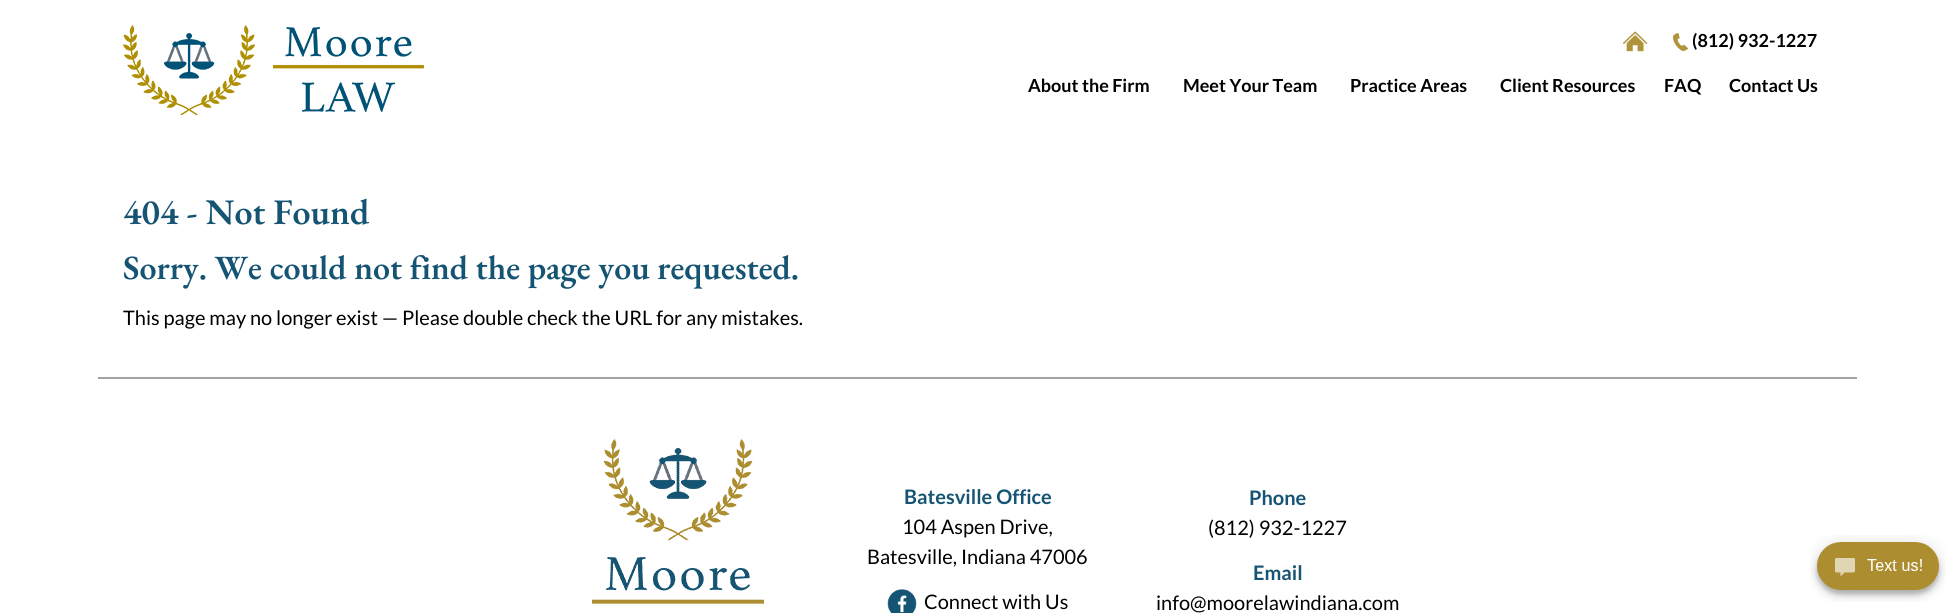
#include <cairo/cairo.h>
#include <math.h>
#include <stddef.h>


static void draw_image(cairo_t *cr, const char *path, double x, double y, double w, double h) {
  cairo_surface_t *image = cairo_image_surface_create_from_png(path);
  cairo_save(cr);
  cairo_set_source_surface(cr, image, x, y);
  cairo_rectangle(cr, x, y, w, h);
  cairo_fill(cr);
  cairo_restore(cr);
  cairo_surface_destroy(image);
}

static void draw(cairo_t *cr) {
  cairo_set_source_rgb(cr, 1, 1, 1);
  cairo_paint(cr);
  draw_image(cr, "images/1.png", 123, 25, 301, 90);
  draw_image(cr, "images/2.png", 1623, 31, 25, 21);
  draw_image(cr, "images/3.png", 1673, 32, 15, 20);
  cairo_set_source_rgb(cr, 163 / 255.0, 162 / 255.0, 162 / 255.0);
  cairo_rectangle(cr, 98, 377, 1759, 2);
  cairo_fill(cr);
  draw_image(cr, "images/4.png", 592, 439, 172, 165);
  draw_image(cr, "images/5.png", 887, 589, 30, 24);
  draw_image(cr, "images/6.png", 1810, 535, 136, 67);
  cairo_select_font_face(cr, "Lato", CAIRO_FONT_SLANT_NORMAL, CAIRO_FONT_WEIGHT_BOLD);
  cairo_set_font_size(cr, 18);
  cairo_set_source_rgb(cr, 0, 0, 0);
  cairo_move_to(cr, 1692, 47);
  cairo_show_text(cr, "(812) 932-1227");
  cairo_move_to(cr, 1028, 92);
  cairo_show_text(cr, "About the Firm");
  cairo_move_to(cr, 1183, 92);
  cairo_show_text(cr, "Meet Your Team");
  cairo_move_to(cr, 1350, 92);
  cairo_show_text(cr, "Practice Areas");
  cairo_move_to(cr, 1500, 92);
  cairo_show_text(cr, "Client Resources");
  cairo_move_to(cr, 1664, 92);
  cairo_show_text(cr, "FAQ");
  cairo_move_to(cr, 1729, 92);
  cairo_show_text(cr, "Contact Us");
  cairo_select_font_face(cr, "EB Garamond SemiBold", CAIRO_FONT_SLANT_NORMAL, CAIRO_FONT_WEIGHT_NORMAL);
  cairo_set_font_size(cr, 36);
  cairo_set_source_rgb(cr, 21 / 255.0, 84 / 255.0, 115 / 255.0);
  cairo_move_to(cr, 123, 224);
  cairo_show_text(cr, "404 - Not Found");
  cairo_set_font_size(cr, 34);
  cairo_move_to(cr, 123, 279);
  cairo_show_text(cr, "Sorry. We could not find the page you requested.");
  cairo_select_font_face(cr, "Lato", CAIRO_FONT_SLANT_NORMAL, CAIRO_FONT_WEIGHT_NORMAL);
  cairo_set_font_size(cr, 20);
  cairo_set_source_rgb(cr, 0, 0, 0);
  cairo_move_to(cr, 123, 325);
  cairo_show_text(cr, "This page may no longer exist — Please double check the URL for any mistakes.");
  cairo_select_font_face(cr, "Lato", CAIRO_FONT_SLANT_NORMAL, CAIRO_FONT_WEIGHT_BOLD);
  cairo_set_source_rgb(cr, 21 / 255.0, 84 / 255.0, 115 / 255.0);
  cairo_move_to(cr, 904, 504);
  cairo_show_text(cr, "Batesville Office");
  cairo_select_font_face(cr, "Lato", CAIRO_FONT_SLANT_NORMAL, CAIRO_FONT_WEIGHT_NORMAL);
  cairo_set_source_rgb(cr, 0, 0, 0);
  cairo_move_to(cr, 902, 534);
  cairo_show_text(cr, "104 Aspen Drive,");
  cairo_move_to(cr, 867, 564);
  cairo_show_text(cr, "Batesville, Indiana 47006");
  cairo_move_to(cr, 924, 609);
  cairo_show_text(cr, "Connect with Us");
  cairo_select_font_face(cr, "Lato", CAIRO_FONT_SLANT_NORMAL, CAIRO_FONT_WEIGHT_BOLD);
  cairo_set_source_rgb(cr, 21 / 255.0, 84 / 255.0, 115 / 255.0);
  cairo_move_to(cr, 1249, 505);
  cairo_show_text(cr, "Phone");
  cairo_select_font_face(cr, "Lato", CAIRO_FONT_SLANT_NORMAL, CAIRO_FONT_WEIGHT_NORMAL);
  cairo_set_source_rgb(cr, 0, 0, 0);
  cairo_move_to(cr, 1208, 535);
  cairo_show_text(cr, "(812) 932-1227");
  cairo_select_font_face(cr, "Lato", CAIRO_FONT_SLANT_NORMAL, CAIRO_FONT_WEIGHT_BOLD);
  cairo_set_source_rgb(cr, 21 / 255.0, 84 / 255.0, 115 / 255.0);
  cairo_move_to(cr, 1253, 580);
  cairo_show_text(cr, "Email");
  cairo_select_font_face(cr, "Lato", CAIRO_FONT_SLANT_NORMAL, CAIRO_FONT_WEIGHT_NORMAL);
  cairo_set_source_rgb(cr, 0, 0, 0);
  cairo_move_to(cr, 1156, 610);
  cairo_show_text(cr, "info@moorelawindiana.com");
}

int main(void) {
  cairo_surface_t *surface = cairo_image_surface_create(CAIRO_FORMAT_RGB24, 1955, 613);
  cairo_t *cr = cairo_create(surface);
  cairo_font_options_t *options = cairo_font_options_create();
  cairo_font_options_set_hint_metrics(options, CAIRO_HINT_METRICS_OFF);
  cairo_font_options_set_hint_style(options, CAIRO_HINT_STYLE_NONE);
  cairo_set_font_options(cr, options);
  cairo_set_miter_limit(cr, 4);
  draw(cr);
  cairo_surface_write_to_png(surface, "out.png");
  cairo_font_options_destroy(options);
  cairo_destroy(cr);
  cairo_surface_destroy(surface);
  return 0;
}
